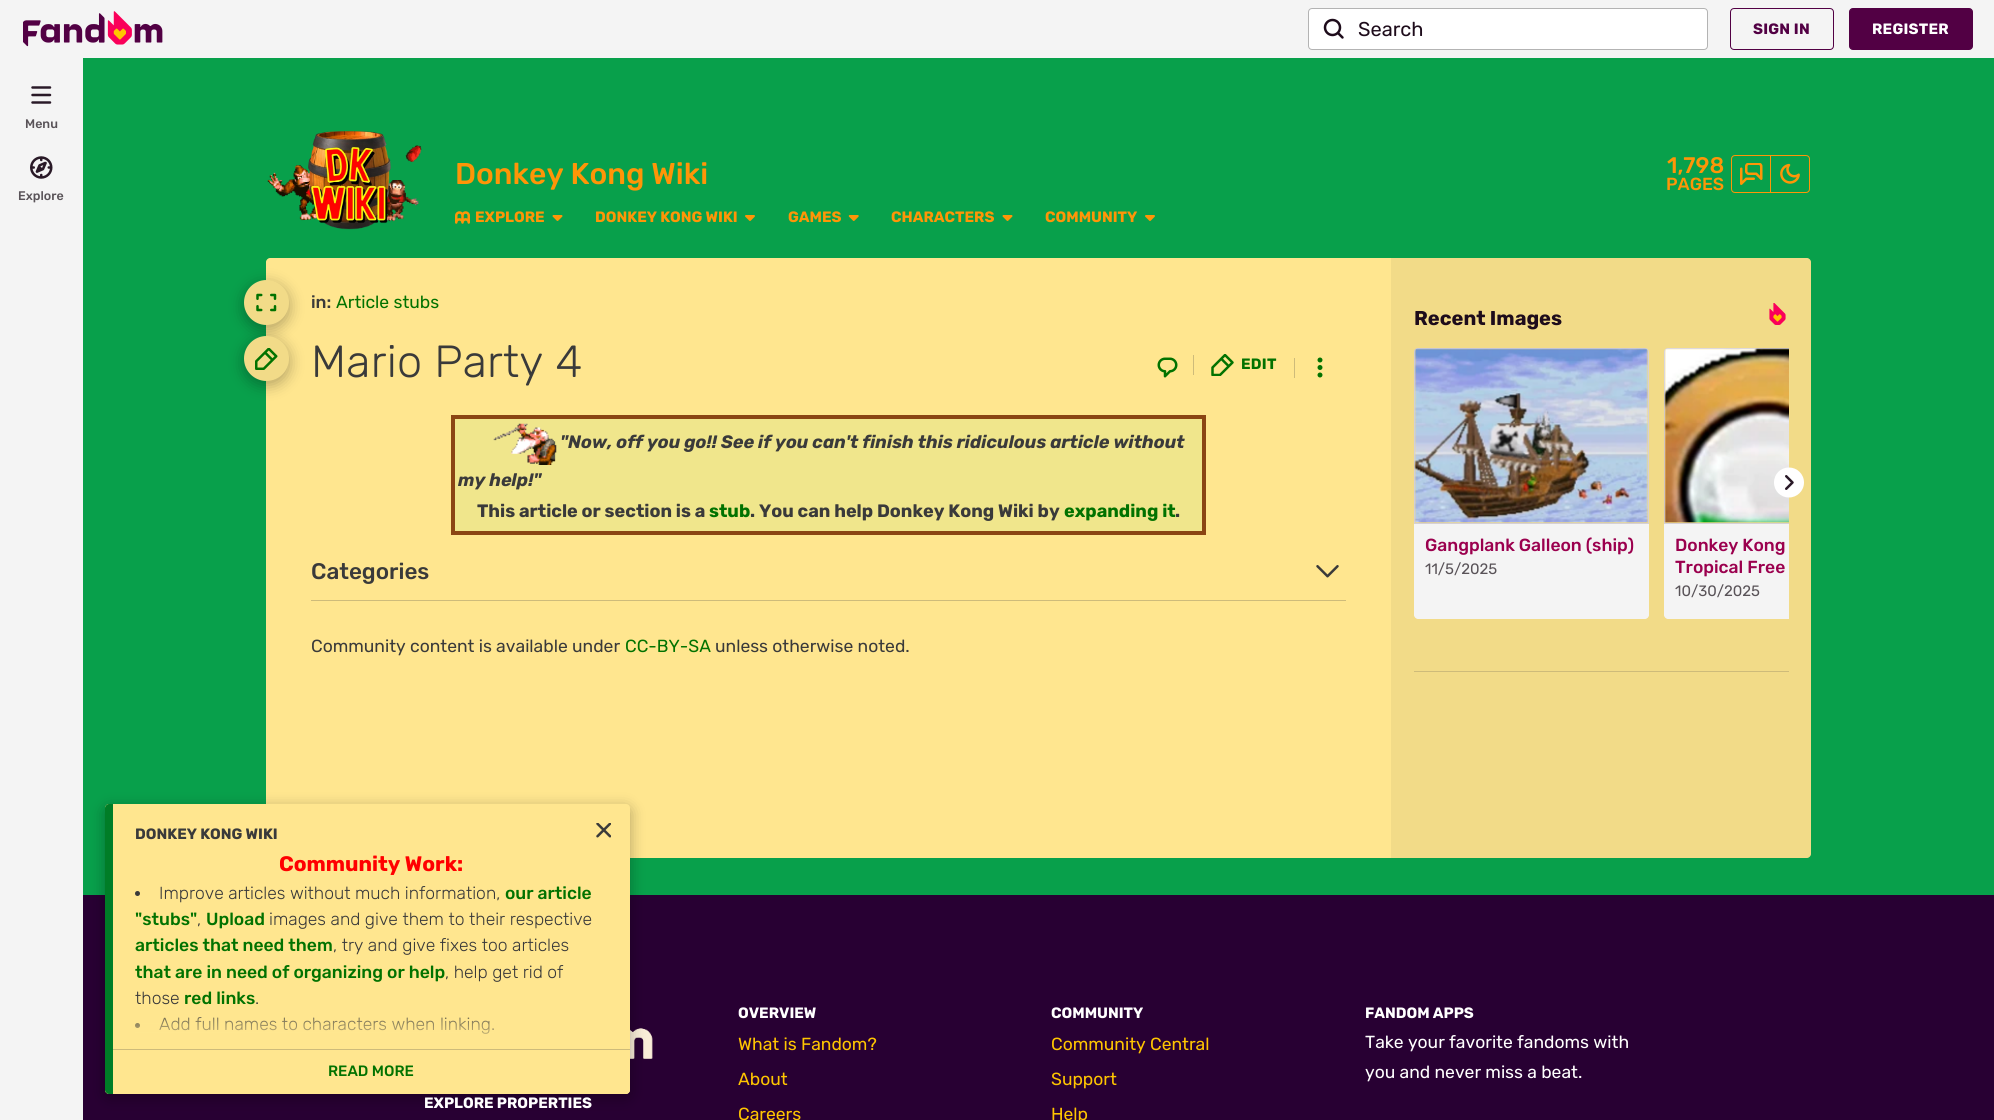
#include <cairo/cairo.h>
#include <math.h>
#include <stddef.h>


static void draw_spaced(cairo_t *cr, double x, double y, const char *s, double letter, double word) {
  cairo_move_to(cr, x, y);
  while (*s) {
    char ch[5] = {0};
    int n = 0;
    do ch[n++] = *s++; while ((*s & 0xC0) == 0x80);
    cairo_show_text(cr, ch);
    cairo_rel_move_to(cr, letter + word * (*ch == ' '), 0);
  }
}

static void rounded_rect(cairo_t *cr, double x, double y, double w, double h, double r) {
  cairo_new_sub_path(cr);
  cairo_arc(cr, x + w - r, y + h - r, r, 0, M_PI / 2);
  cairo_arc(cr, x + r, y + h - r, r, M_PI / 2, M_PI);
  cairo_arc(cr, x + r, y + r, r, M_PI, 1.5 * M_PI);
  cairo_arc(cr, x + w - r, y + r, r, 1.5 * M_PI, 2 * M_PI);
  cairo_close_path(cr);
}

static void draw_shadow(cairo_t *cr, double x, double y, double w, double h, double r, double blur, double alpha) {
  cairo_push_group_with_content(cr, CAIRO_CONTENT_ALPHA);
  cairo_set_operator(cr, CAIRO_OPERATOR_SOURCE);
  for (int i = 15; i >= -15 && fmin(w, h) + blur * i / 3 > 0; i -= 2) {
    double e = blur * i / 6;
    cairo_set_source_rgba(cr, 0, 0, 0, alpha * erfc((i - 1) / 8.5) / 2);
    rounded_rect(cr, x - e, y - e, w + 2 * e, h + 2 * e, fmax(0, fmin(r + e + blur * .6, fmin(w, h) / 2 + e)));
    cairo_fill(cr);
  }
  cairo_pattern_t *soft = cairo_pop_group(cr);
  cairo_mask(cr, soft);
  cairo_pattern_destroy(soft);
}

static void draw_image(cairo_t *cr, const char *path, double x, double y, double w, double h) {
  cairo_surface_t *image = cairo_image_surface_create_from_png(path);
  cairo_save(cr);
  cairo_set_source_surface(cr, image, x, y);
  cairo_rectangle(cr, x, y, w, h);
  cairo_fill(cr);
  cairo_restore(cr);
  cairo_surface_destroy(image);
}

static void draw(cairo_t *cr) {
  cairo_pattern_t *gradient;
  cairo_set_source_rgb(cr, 8 / 255.0, 160 / 255.0, 75 / 255.0);
  cairo_paint(cr);
  cairo_set_source_rgb(cr, 244 / 255.0, 244 / 255.0, 244 / 255.0);
  cairo_rectangle(cr, 0, 0, 1994, 58);
  cairo_fill(cr);
  draw_image(cr, "images/1.png", 23, 11, 140, 36);
  cairo_set_source_rgb(cr, 1, 1, 1);
  rounded_rect(cr, 1308.5, 8.5, 399, 41, 3.5);
  cairo_fill_preserve(cr);
  cairo_set_source_rgb(cr, 179 / 255.0, 179 / 255.0, 179 / 255.0);
  cairo_set_line_width(cr, 1);
  cairo_stroke(cr);
  draw_image(cr, "images/2.png", 1323, 18, 21, 21);
  rounded_rect(cr, 1730.5, 8.5, 103, 41, 3.5);
  cairo_set_source_rgb(cr, 82 / 255.0, 0, 68 / 255.0);
  cairo_stroke(cr);
  rounded_rect(cr, 1849.5, 8.5, 123, 41, 3.5);
  cairo_fill_preserve(cr);
  cairo_stroke(cr);
  cairo_set_source_rgb(cr, 1, 230 / 255.0, 143 / 255.0);
  cairo_new_path(cr);
  cairo_move_to(cr, 270, 258);
  cairo_line_to(cr, 1391, 258);
  cairo_line_to(cr, 1391, 858);
  cairo_line_to(cr, 270, 858);
  cairo_curve_to(cr, 268, 858, 266, 856, 266, 854);
  cairo_line_to(cr, 266, 262);
  cairo_curve_to(cr, 266, 260, 268, 258, 270, 258);
  cairo_close_path(cr);
  cairo_fill(cr);
  cairo_set_source_rgb(cr, 40 / 255.0, 0, 51 / 255.0);
  cairo_rectangle(cr, 83, 895, 1911, 225);
  cairo_fill(cr);
  draw_image(cr, "images/23.png", 630, 1028, 23, 31);
  cairo_set_source_rgb(cr, 0, 0, 0);
  draw_shadow(cr, 105, 808, 525, 290, 4, 7.5, 0.3);
  cairo_set_source_rgb(cr, 244 / 255.0, 244 / 255.0, 244 / 255.0);
  cairo_rectangle(cr, 0, 58, 83, 1062);
  cairo_fill(cr);
  draw_image(cr, "images/3.png", 31, 86, 21, 18);
  draw_image(cr, "images/4.png", 30, 156, 23, 23);
  draw_image(cr, "images/5.png", 267, 131, 155, 99);
  cairo_new_path(cr);
  cairo_move_to(cr, 1735, 155.5);
  cairo_line_to(cr, 1770.5, 155.5);
  cairo_line_to(cr, 1770.5, 192.5);
  cairo_line_to(cr, 1735, 192.5);
  cairo_curve_to(cr, 1733, 192.5, 1731.5, 191, 1731.5, 189);
  cairo_line_to(cr, 1731.5, 159);
  cairo_curve_to(cr, 1731.5, 157, 1733, 155.5, 1735, 155.5);
  cairo_close_path(cr);
  cairo_set_source_rgb(cr, 1, 149 / 255.0, 7 / 255.0);
  cairo_stroke(cr);
  draw_image(cr, "images/6.png", 1740, 163, 23, 22);
  cairo_new_path(cr);
  cairo_move_to(cr, 1770.5, 155.5);
  cairo_line_to(cr, 1806, 155.5);
  cairo_curve_to(cr, 1808, 155.5, 1809.5, 157, 1809.5, 159);
  cairo_line_to(cr, 1809.5, 189);
  cairo_curve_to(cr, 1809.5, 191, 1808, 192.5, 1806, 192.5);
  cairo_line_to(cr, 1770.5, 192.5);
  cairo_close_path(cr);
  cairo_stroke(cr);
  draw_image(cr, "images/7.png", 1780, 163, 20, 21);
  draw_image(cr, "images/8.png", 455, 211, 15, 13);
  draw_image(cr, "images/9.png", 552, 215, 11, 6);
  draw_image(cr, "images/10.png", 745, 215, 10, 6);
  draw_image(cr, "images/11.png", 848, 215, 11, 6);
  draw_image(cr, "images/9.png", 1002, 215, 11, 6);
  draw_image(cr, "images/10.png", 1145, 215, 10, 6);
  cairo_set_source_rgb(cr, 0, 0, 0);
  draw_shadow(cr, 244, 284, 45, 45, 22.5, 7.5, 0.3);
  cairo_set_source_rgb(cr, 242 / 255.0, 219 / 255.0, 136 / 255.0);
  cairo_arc(cr, 266.5, 302.5, 22.5, 0, 2 * M_PI);
  cairo_fill(cr);
  draw_image(cr, "images/12.png", 256, 293, 21, 19);
  cairo_set_source_rgb(cr, 0, 0, 0);
  draw_shadow(cr, 244, 340, 45, 45, 22.5, 7.5, 0.3);
  cairo_set_source_rgb(cr, 242 / 255.0, 219 / 255.0, 136 / 255.0);
  cairo_arc(cr, 266.5, 358.5, 22.5, 0, 2 * M_PI);
  cairo_fill(cr);
  draw_image(cr, "images/13.png", 255, 348, 23, 22);
  draw_image(cr, "images/14.png", 1157, 357, 21, 21);
  cairo_set_source_rgb(cr, 206 / 255.0, 187 / 255.0, 122 / 255.0);
  cairo_rectangle(cr, 1193, 355, 1, 20);
  cairo_fill(cr);
  draw_image(cr, "images/15.png", 1211, 354, 23, 22);
  cairo_rectangle(cr, 1294, 358, 1, 20);
  cairo_fill(cr);
  draw_image(cr, "images/16.png", 1317, 357, 6, 21);
  cairo_set_source_rgb(cr, 240 / 255.0, 230 / 255.0, 140 / 255.0);
  cairo_rectangle(cr, 453, 417, 751, 116);
  cairo_fill_preserve(cr);
  cairo_set_source_rgb(cr, 139 / 255.0, 69 / 255.0, 19 / 255.0);
  cairo_set_line_width(cr, 4);
  cairo_stroke(cr);
  draw_image(cr, "images/17.png", 493, 423, 64, 42);
  cairo_set_source_rgb(cr, 206 / 255.0, 187 / 255.0, 122 / 255.0);
  cairo_rectangle(cr, 311, 600, 1035, 1);
  cairo_fill(cr);
  draw_image(cr, "images/18.png", 1316, 565, 23, 13);
  cairo_set_source_rgb(cr, 242 / 255.0, 219 / 255.0, 136 / 255.0);
  cairo_new_path(cr);
  cairo_move_to(cr, 1391, 258);
  cairo_line_to(cr, 1807, 258);
  cairo_curve_to(cr, 1809, 258, 1811, 260, 1811, 262);
  cairo_line_to(cr, 1811, 854);
  cairo_curve_to(cr, 1811, 856, 1809, 858, 1807, 858);
  cairo_line_to(cr, 1391, 858);
  cairo_close_path(cr);
  cairo_fill(cr);
  cairo_set_source_rgb(cr, 206 / 255.0, 187 / 255.0, 122 / 255.0);
  cairo_rectangle(cr, 1414, 671, 375, 1);
  cairo_fill(cr);
  draw_image(cr, "images/19.png", 1769, 303, 17, 22);
  cairo_save(cr);
  cairo_rectangle(cr, 1414, 348, 375, 271);
  cairo_clip(cr);
  cairo_new_path(cr);
  cairo_move_to(cr, 1668, 348.5);
  cairo_line_to(cr, 1895, 348.5);
  cairo_curve_to(cr, 1897, 348.5, 1898.5, 350, 1898.5, 352);
  cairo_line_to(cr, 1898.5, 523.5);
  cairo_line_to(cr, 1664.5, 523.5);
  cairo_line_to(cr, 1664.5, 352);
  cairo_curve_to(cr, 1664.5, 350, 1666, 348.5, 1668, 348.5);
  cairo_close_path(cr);
  cairo_set_source_rgb(cr, 214 / 255.0, 208 / 255.0, 213 / 255.0);
  cairo_set_line_width(cr, 1);
  cairo_stroke(cr);
  cairo_restore(cr);
  draw_image(cr, "images/22.png", 1664, 348, 125, 175);
  cairo_set_source_rgb(cr, 1, 1, 1);
  cairo_new_path(cr);
  cairo_move_to(cr, 1774, 482.5);
  cairo_curve_to(cr, 1774, 474, 1780.5, 467.5, 1789, 467.5);
  cairo_curve_to(cr, 1797, 467.5, 1804, 474, 1804, 482.5);
  cairo_curve_to(cr, 1804, 491, 1797, 497.5, 1789, 497.5);
  cairo_curve_to(cr, 1780.5, 497.5, 1774, 491, 1774, 482.5);
  cairo_close_path(cr);
  cairo_fill(cr);
  draw_image(cr, "images/20.png", 1785, 475, 9, 15);
  cairo_new_path(cr);
  cairo_move_to(cr, 1418, 348.5);
  cairo_line_to(cr, 1645, 348.5);
  cairo_curve_to(cr, 1647, 348.5, 1648.5, 350, 1648.5, 352);
  cairo_line_to(cr, 1648.5, 523.5);
  cairo_line_to(cr, 1414.5, 523.5);
  cairo_line_to(cr, 1414.5, 352);
  cairo_curve_to(cr, 1414.5, 350, 1416, 348.5, 1418, 348.5);
  cairo_close_path(cr);
  cairo_set_source_rgb(cr, 214 / 255.0, 208 / 255.0, 213 / 255.0);
  cairo_set_line_width(cr, 1);
  cairo_stroke(cr);
  draw_image(cr, "images/21.png", 1414, 348, 234, 175);
  cairo_set_source_rgb(cr, 244 / 255.0, 244 / 255.0, 244 / 255.0);
  cairo_new_path(cr);
  cairo_move_to(cr, 1414, 524);
  cairo_line_to(cr, 1649, 524);
  cairo_line_to(cr, 1649, 615);
  cairo_curve_to(cr, 1649, 617, 1647, 619, 1645, 619);
  cairo_line_to(cr, 1418, 619);
  cairo_curve_to(cr, 1416, 619, 1414, 617, 1414, 615);
  cairo_close_path(cr);
  cairo_fill(cr);
  cairo_new_path(cr);
  cairo_move_to(cr, 1664, 524);
  cairo_line_to(cr, 1789, 524);
  cairo_line_to(cr, 1789, 619);
  cairo_line_to(cr, 1668, 619);
  cairo_curve_to(cr, 1666, 619, 1664, 617, 1664, 615);
  cairo_close_path(cr);
  cairo_fill(cr);
  cairo_set_source_rgb(cr, 1, 230 / 255.0, 143 / 255.0);
  rounded_rect(cr, 105, 804, 525, 290, 4);
  cairo_fill(cr);
  cairo_set_source_rgb(cr, 0, 125 / 255.0, 39 / 255.0);
  cairo_new_path(cr);
  cairo_move_to(cr, 109, 804);
  cairo_line_to(cr, 113, 804);
  cairo_line_to(cr, 113, 1094);
  cairo_line_to(cr, 109, 1094);
  cairo_curve_to(cr, 107, 1094, 105, 1092, 105, 1090);
  cairo_line_to(cr, 105, 808);
  cairo_curve_to(cr, 105, 806, 107, 804, 109, 804);
  cairo_close_path(cr);
  cairo_fill(cr);
  draw_image(cr, "images/24.png", 596, 823, 15, 15);
  cairo_set_source_rgb(cr, 58 / 255.0, 58 / 255.0, 58 / 255.0);
  cairo_arc(cr, 137.5, 893.5, 2.5, 0, 2 * M_PI);
  cairo_fill(cr);
  cairo_arc(cr, 137.5, 1025.5, 2.5, 0, 2 * M_PI);
  cairo_fill(cr);
  cairo_set_source_rgb(cr, 1, 230 / 255.0, 143 / 255.0);
  cairo_new_path(cr);
  cairo_move_to(cr, 113, 1049);
  cairo_line_to(cr, 630, 1049);
  cairo_line_to(cr, 630, 1090);
  cairo_curve_to(cr, 630, 1092, 628, 1094, 626, 1094);
  cairo_line_to(cr, 113, 1094);
  cairo_close_path(cr);
  cairo_fill(cr);
  cairo_set_source_rgb(cr, 206 / 255.0, 187 / 255.0, 122 / 255.0);
  cairo_rectangle(cr, 113, 1049, 517, 1);
  cairo_fill(cr);
  cairo_select_font_face(cr, "Rubik", CAIRO_FONT_SLANT_NORMAL, CAIRO_FONT_WEIGHT_NORMAL);
  cairo_set_font_size(cr, 20);
  cairo_set_source_rgb(cr, 30 / 255.0, 12 / 255.0, 27 / 255.0);
  cairo_move_to(cr, 1358, 36);
  cairo_show_text(cr, "Search");
  cairo_select_font_face(cr, "Rubik", CAIRO_FONT_SLANT_NORMAL, CAIRO_FONT_WEIGHT_BOLD);
  cairo_set_font_size(cr, 15);
  cairo_set_source_rgb(cr, 82 / 255.0, 0, 68 / 255.0);
  draw_spaced(cr, 1753, 34, "SIGN IN", 0.25, 0);
  cairo_set_source_rgb(cr, 1, 1, 1);
  draw_spaced(cr, 1872, 34, "REGISTER", 0.25, 0);
  cairo_select_font_face(cr, "Rubik Medium", CAIRO_FONT_SLANT_NORMAL, CAIRO_FONT_WEIGHT_NORMAL);
  cairo_set_font_size(cr, 12.5);
  cairo_set_source_rgb(cr, 89 / 255.0, 83 / 255.0, 88 / 255.0);
  cairo_move_to(cr, 25, 128);
  cairo_show_text(cr, "Menu");
  cairo_move_to(cr, 18, 200);
  cairo_show_text(cr, "Explore");
  cairo_set_font_size(cr, 30);
  cairo_set_source_rgb(cr, 1, 149 / 255.0, 7 / 255.0);
  cairo_move_to(cr, 455, 184);
  cairo_show_text(cr, "Donkey Kong Wiki");
  cairo_set_font_size(cr, 22.5);
  cairo_move_to(cr, 1667, 173);
  cairo_show_text(cr, "1,798");
  cairo_set_font_size(cr, 17.5);
  cairo_move_to(cr, 1666, 190);
  cairo_show_text(cr, "PAGES");
  cairo_select_font_face(cr, "Rubik", CAIRO_FONT_SLANT_NORMAL, CAIRO_FONT_WEIGHT_BOLD);
  cairo_set_font_size(cr, 15);
  cairo_move_to(cr, 475, 222);
  cairo_show_text(cr, "EXPLORE");
  cairo_move_to(cr, 595, 222);
  cairo_show_text(cr, "DONKEY KONG WIKI");
  cairo_move_to(cr, 788, 222);
  cairo_show_text(cr, "GAMES");
  cairo_move_to(cr, 891, 222);
  cairo_show_text(cr, "CHARACTERS");
  cairo_move_to(cr, 1045, 222);
  cairo_show_text(cr, "COMMUNITY");
  cairo_select_font_face(cr, "Rubik Medium", CAIRO_FONT_SLANT_NORMAL, CAIRO_FONT_WEIGHT_NORMAL);
  cairo_set_font_size(cr, 17.5);
  cairo_set_source_rgb(cr, 58 / 255.0, 58 / 255.0, 58 / 255.0);
  cairo_move_to(cr, 311, 308);
  cairo_show_text(cr, "in:");
  cairo_select_font_face(cr, "Rubik", CAIRO_FONT_SLANT_NORMAL, CAIRO_FONT_WEIGHT_NORMAL);
  cairo_set_source_rgb(cr, 2 / 255.0, 114 / 255.0, 0);
  cairo_move_to(cr, 336, 308);
  cairo_show_text(cr, "Article stubs");
  cairo_select_font_face(cr, "Rubik Light", CAIRO_FONT_SLANT_NORMAL, CAIRO_FONT_WEIGHT_NORMAL);
  cairo_set_font_size(cr, 45);
  cairo_set_source_rgb(cr, 58 / 255.0, 58 / 255.0, 58 / 255.0);
  draw_spaced(cr, 311, 377, "Mario Party 4", 0.25, 0);
  cairo_select_font_face(cr, "Rubik", CAIRO_FONT_SLANT_NORMAL, CAIRO_FONT_WEIGHT_BOLD);
  cairo_set_font_size(cr, 15);
  cairo_set_source_rgb(cr, 2 / 255.0, 114 / 255.0, 0);
  draw_spaced(cr, 1241, 369, "EDIT", 0.25, 0);
  cairo_select_font_face(cr, "Rubik", CAIRO_FONT_SLANT_ITALIC, CAIRO_FONT_WEIGHT_BOLD);
  cairo_set_font_size(cr, 18);
  cairo_set_source_rgb(cr, 58 / 255.0, 58 / 255.0, 58 / 255.0);
  cairo_move_to(cr, 560, 448);
  cairo_show_text(cr, "\"Now, off you go!! See if you can't finish this ridiculous article without");
  cairo_move_to(cr, 458, 486);
  cairo_show_text(cr, "my help!\"");
  cairo_select_font_face(cr, "Rubik", CAIRO_FONT_SLANT_NORMAL, CAIRO_FONT_WEIGHT_BOLD);
  cairo_move_to(cr, 477, 517);
  cairo_show_text(cr, "This article or section is a");
  cairo_set_source_rgb(cr, 2 / 255.0, 114 / 255.0, 0);
  cairo_move_to(cr, 709, 517);
  cairo_show_text(cr, "stub");
  cairo_set_source_rgb(cr, 58 / 255.0, 58 / 255.0, 58 / 255.0);
  cairo_move_to(cr, 750, 517);
  cairo_show_text(cr, ". You can help Donkey Kong Wiki by");
  cairo_set_source_rgb(cr, 2 / 255.0, 114 / 255.0, 0);
  cairo_move_to(cr, 1064, 517);
  cairo_show_text(cr, "expanding it");
  cairo_set_source_rgb(cr, 58 / 255.0, 58 / 255.0, 58 / 255.0);
  cairo_move_to(cr, 1175, 517);
  cairo_show_text(cr, ".");
  cairo_select_font_face(cr, "Rubik Medium", CAIRO_FONT_SLANT_NORMAL, CAIRO_FONT_WEIGHT_NORMAL);
  cairo_set_font_size(cr, 22.5);
  cairo_move_to(cr, 311, 579);
  cairo_show_text(cr, "Categories");
  cairo_select_font_face(cr, "Rubik", CAIRO_FONT_SLANT_NORMAL, CAIRO_FONT_WEIGHT_NORMAL);
  cairo_set_font_size(cr, 17.5);
  cairo_move_to(cr, 311, 652);
  cairo_show_text(cr, "Community content is available under");
  cairo_set_source_rgb(cr, 2 / 255.0, 114 / 255.0, 0);
  cairo_move_to(cr, 625, 652);
  cairo_show_text(cr, "CC-BY-SA");
  cairo_set_source_rgb(cr, 58 / 255.0, 58 / 255.0, 58 / 255.0);
  cairo_move_to(cr, 715, 652);
  cairo_show_text(cr, "unless otherwise noted.");
  cairo_select_font_face(cr, "Rubik", CAIRO_FONT_SLANT_NORMAL, CAIRO_FONT_WEIGHT_BOLD);
  cairo_set_font_size(cr, 20);
  cairo_set_source_rgb(cr, 30 / 255.0, 12 / 255.0, 27 / 255.0);
  cairo_move_to(cr, 1414, 325);
  cairo_show_text(cr, "Recent Images");
  cairo_select_font_face(cr, "Rubik Medium", CAIRO_FONT_SLANT_NORMAL, CAIRO_FONT_WEIGHT_NORMAL);
  cairo_set_font_size(cr, 17.5);
  cairo_set_source_rgb(cr, 155 / 255.0, 0, 78 / 255.0);
  cairo_move_to(cr, 1425, 551);
  cairo_show_text(cr, "Gangplank Galleon (ship)");
  cairo_select_font_face(cr, "Rubik", CAIRO_FONT_SLANT_NORMAL, CAIRO_FONT_WEIGHT_NORMAL);
  cairo_set_font_size(cr, 15);
  cairo_set_source_rgb(cr, 89 / 255.0, 83 / 255.0, 88 / 255.0);
  cairo_move_to(cr, 1425, 574);
  cairo_show_text(cr, "11/5/2025");
  cairo_select_font_face(cr, "Rubik Medium", CAIRO_FONT_SLANT_NORMAL, CAIRO_FONT_WEIGHT_NORMAL);
  cairo_set_font_size(cr, 17.5);
  cairo_set_source_rgb(cr, 155 / 255.0, 0, 78 / 255.0);
  cairo_move_to(cr, 1675, 551);
  cairo_show_text(cr, "Donkey Kong");
  cairo_move_to(cr, 1675, 573);
  cairo_show_text(cr, "Tropical Free");
  cairo_select_font_face(cr, "Rubik", CAIRO_FONT_SLANT_NORMAL, CAIRO_FONT_WEIGHT_NORMAL);
  cairo_set_font_size(cr, 15);
  cairo_set_source_rgb(cr, 89 / 255.0, 83 / 255.0, 88 / 255.0);
  cairo_move_to(cr, 1675, 596);
  cairo_show_text(cr, "10/30/2025");
  cairo_select_font_face(cr, "Rubik", CAIRO_FONT_SLANT_NORMAL, CAIRO_FONT_WEIGHT_BOLD);
  cairo_set_source_rgb(cr, 1, 1, 1);
  cairo_move_to(cr, 738, 1018);
  cairo_show_text(cr, "OVERVIEW");
  cairo_select_font_face(cr, "Rubik", CAIRO_FONT_SLANT_NORMAL, CAIRO_FONT_WEIGHT_NORMAL);
  cairo_set_font_size(cr, 17.5);
  cairo_set_source_rgb(cr, 1, 197 / 255.0, 0);
  cairo_move_to(cr, 738, 1050);
  cairo_show_text(cr, "What is Fandom?");
  cairo_move_to(cr, 738, 1085);
  cairo_show_text(cr, "About");
  cairo_move_to(cr, 738, 1120);
  cairo_show_text(cr, "Careers");
  cairo_select_font_face(cr, "Rubik", CAIRO_FONT_SLANT_NORMAL, CAIRO_FONT_WEIGHT_BOLD);
  cairo_set_font_size(cr, 15);
  cairo_set_source_rgb(cr, 1, 1, 1);
  cairo_move_to(cr, 1051, 1018);
  cairo_show_text(cr, "COMMUNITY");
  cairo_select_font_face(cr, "Rubik", CAIRO_FONT_SLANT_NORMAL, CAIRO_FONT_WEIGHT_NORMAL);
  cairo_set_font_size(cr, 17.5);
  cairo_set_source_rgb(cr, 1, 197 / 255.0, 0);
  cairo_move_to(cr, 1051, 1050);
  cairo_show_text(cr, "Community Central");
  cairo_move_to(cr, 1051, 1085);
  cairo_show_text(cr, "Support");
  cairo_move_to(cr, 1051, 1120);
  cairo_show_text(cr, "Help");
  cairo_select_font_face(cr, "Rubik", CAIRO_FONT_SLANT_NORMAL, CAIRO_FONT_WEIGHT_BOLD);
  cairo_set_font_size(cr, 15);
  cairo_set_source_rgb(cr, 1, 1, 1);
  cairo_move_to(cr, 1365, 1018);
  cairo_show_text(cr, "FANDOM APPS");
  cairo_select_font_face(cr, "Rubik", CAIRO_FONT_SLANT_NORMAL, CAIRO_FONT_WEIGHT_NORMAL);
  cairo_set_font_size(cr, 17.5);
  cairo_move_to(cr, 1365, 1048);
  cairo_show_text(cr, "Take your favorite fandoms with");
  cairo_move_to(cr, 1365, 1078);
  cairo_show_text(cr, "you and never miss a beat.");
  cairo_select_font_face(cr, "Rubik", CAIRO_FONT_SLANT_NORMAL, CAIRO_FONT_WEIGHT_BOLD);
  cairo_set_font_size(cr, 15);
  cairo_move_to(cr, 424, 1108);
  cairo_show_text(cr, "EXPLORE PROPERTIES");
  cairo_set_source_rgb(cr, 58 / 255.0, 58 / 255.0, 58 / 255.0);
  cairo_move_to(cr, 135, 839);
  cairo_show_text(cr, "DONKEY KONG WIKI");
  cairo_set_font_size(cr, 21);
  cairo_set_source_rgb(cr, 1, 0, 0);
  cairo_move_to(cr, 279, 871);
  cairo_show_text(cr, "Community Work:");
  cairo_select_font_face(cr, "Rubik Light", CAIRO_FONT_SLANT_NORMAL, CAIRO_FONT_WEIGHT_NORMAL);
  cairo_set_font_size(cr, 17.5);
  cairo_set_source_rgb(cr, 58 / 255.0, 58 / 255.0, 58 / 255.0);
  cairo_move_to(cr, 159, 899);
  cairo_show_text(cr, "Improve articles without much information,");
  cairo_select_font_face(cr, "Rubik Medium", CAIRO_FONT_SLANT_NORMAL, CAIRO_FONT_WEIGHT_NORMAL);
  cairo_set_source_rgb(cr, 2 / 255.0, 114 / 255.0, 0);
  cairo_move_to(cr, 505, 899);
  cairo_show_text(cr, "our article");
  cairo_move_to(cr, 135, 925);
  cairo_show_text(cr, "\"stubs\"");
  cairo_select_font_face(cr, "Rubik Light", CAIRO_FONT_SLANT_NORMAL, CAIRO_FONT_WEIGHT_NORMAL);
  cairo_set_source_rgb(cr, 58 / 255.0, 58 / 255.0, 58 / 255.0);
  cairo_move_to(cr, 197, 925);
  cairo_show_text(cr, ",");
  cairo_select_font_face(cr, "Rubik Medium", CAIRO_FONT_SLANT_NORMAL, CAIRO_FONT_WEIGHT_NORMAL);
  cairo_set_source_rgb(cr, 2 / 255.0, 114 / 255.0, 0);
  cairo_move_to(cr, 206, 925);
  cairo_show_text(cr, "Upload");
  cairo_select_font_face(cr, "Rubik Light", CAIRO_FONT_SLANT_NORMAL, CAIRO_FONT_WEIGHT_NORMAL);
  cairo_set_source_rgb(cr, 58 / 255.0, 58 / 255.0, 58 / 255.0);
  cairo_move_to(cr, 269, 925);
  cairo_show_text(cr, "images and give them to their respective");
  cairo_select_font_face(cr, "Rubik Medium", CAIRO_FONT_SLANT_NORMAL, CAIRO_FONT_WEIGHT_NORMAL);
  cairo_set_source_rgb(cr, 2 / 255.0, 114 / 255.0, 0);
  cairo_move_to(cr, 135, 951);
  cairo_show_text(cr, "articles that need them");
  cairo_select_font_face(cr, "Rubik Light", CAIRO_FONT_SLANT_NORMAL, CAIRO_FONT_WEIGHT_NORMAL);
  cairo_set_source_rgb(cr, 58 / 255.0, 58 / 255.0, 58 / 255.0);
  cairo_move_to(cr, 333, 951);
  cairo_show_text(cr, ", try and give fixes too articles");
  cairo_select_font_face(cr, "Rubik Medium", CAIRO_FONT_SLANT_NORMAL, CAIRO_FONT_WEIGHT_NORMAL);
  cairo_set_source_rgb(cr, 2 / 255.0, 114 / 255.0, 0);
  cairo_move_to(cr, 135, 978);
  cairo_show_text(cr, "that are in need of organizing or help");
  cairo_select_font_face(cr, "Rubik Light", CAIRO_FONT_SLANT_NORMAL, CAIRO_FONT_WEIGHT_NORMAL);
  cairo_set_source_rgb(cr, 58 / 255.0, 58 / 255.0, 58 / 255.0);
  cairo_move_to(cr, 445, 978);
  cairo_show_text(cr, ", help get rid of");
  cairo_move_to(cr, 135, 1004);
  cairo_show_text(cr, "those");
  cairo_select_font_face(cr, "Rubik Medium", CAIRO_FONT_SLANT_NORMAL, CAIRO_FONT_WEIGHT_NORMAL);
  cairo_set_source_rgb(cr, 2 / 255.0, 114 / 255.0, 0);
  cairo_move_to(cr, 184, 1004);
  cairo_show_text(cr, "red links");
  cairo_select_font_face(cr, "Rubik Light", CAIRO_FONT_SLANT_NORMAL, CAIRO_FONT_WEIGHT_NORMAL);
  cairo_set_source_rgb(cr, 58 / 255.0, 58 / 255.0, 58 / 255.0);
  cairo_move_to(cr, 255, 1004);
  cairo_show_text(cr, ".");
  cairo_move_to(cr, 159, 1030);
  cairo_show_text(cr, "Add full names to characters when linking.");
  gradient = cairo_pattern_create_linear(371, 1004, 371, 1049);
  cairo_pattern_add_color_stop_rgba(gradient, 0, 1, 230 / 255.0, 143 / 255.0, 0);
  cairo_pattern_add_color_stop_rgba(gradient, 1, 1, 230 / 255.0, 143 / 255.0, 1);
  cairo_set_source(cr, gradient);
  cairo_pattern_destroy(gradient);
  cairo_rectangle(cr, 135, 1017, 359, 17);
  cairo_fill(cr);
  cairo_select_font_face(cr, "Rubik Medium", CAIRO_FONT_SLANT_NORMAL, CAIRO_FONT_WEIGHT_NORMAL);
  cairo_set_font_size(cr, 15);
  cairo_set_source_rgb(cr, 2 / 255.0, 114 / 255.0, 0);
  cairo_move_to(cr, 328, 1076);
  cairo_show_text(cr, "READ MORE");
}

int main(void) {
  cairo_surface_t *surface = cairo_image_surface_create(CAIRO_FORMAT_RGB24, 1994, 1120);
  cairo_t *cr = cairo_create(surface);
  cairo_font_options_t *options = cairo_font_options_create();
  cairo_font_options_set_hint_metrics(options, CAIRO_HINT_METRICS_OFF);
  cairo_font_options_set_hint_style(options, CAIRO_HINT_STYLE_NONE);
  cairo_set_font_options(cr, options);
  cairo_set_miter_limit(cr, 4);
  draw(cr);
  cairo_surface_write_to_png(surface, "out.png");
  cairo_font_options_destroy(options);
  cairo_destroy(cr);
  cairo_surface_destroy(surface);
  return 0;
}
